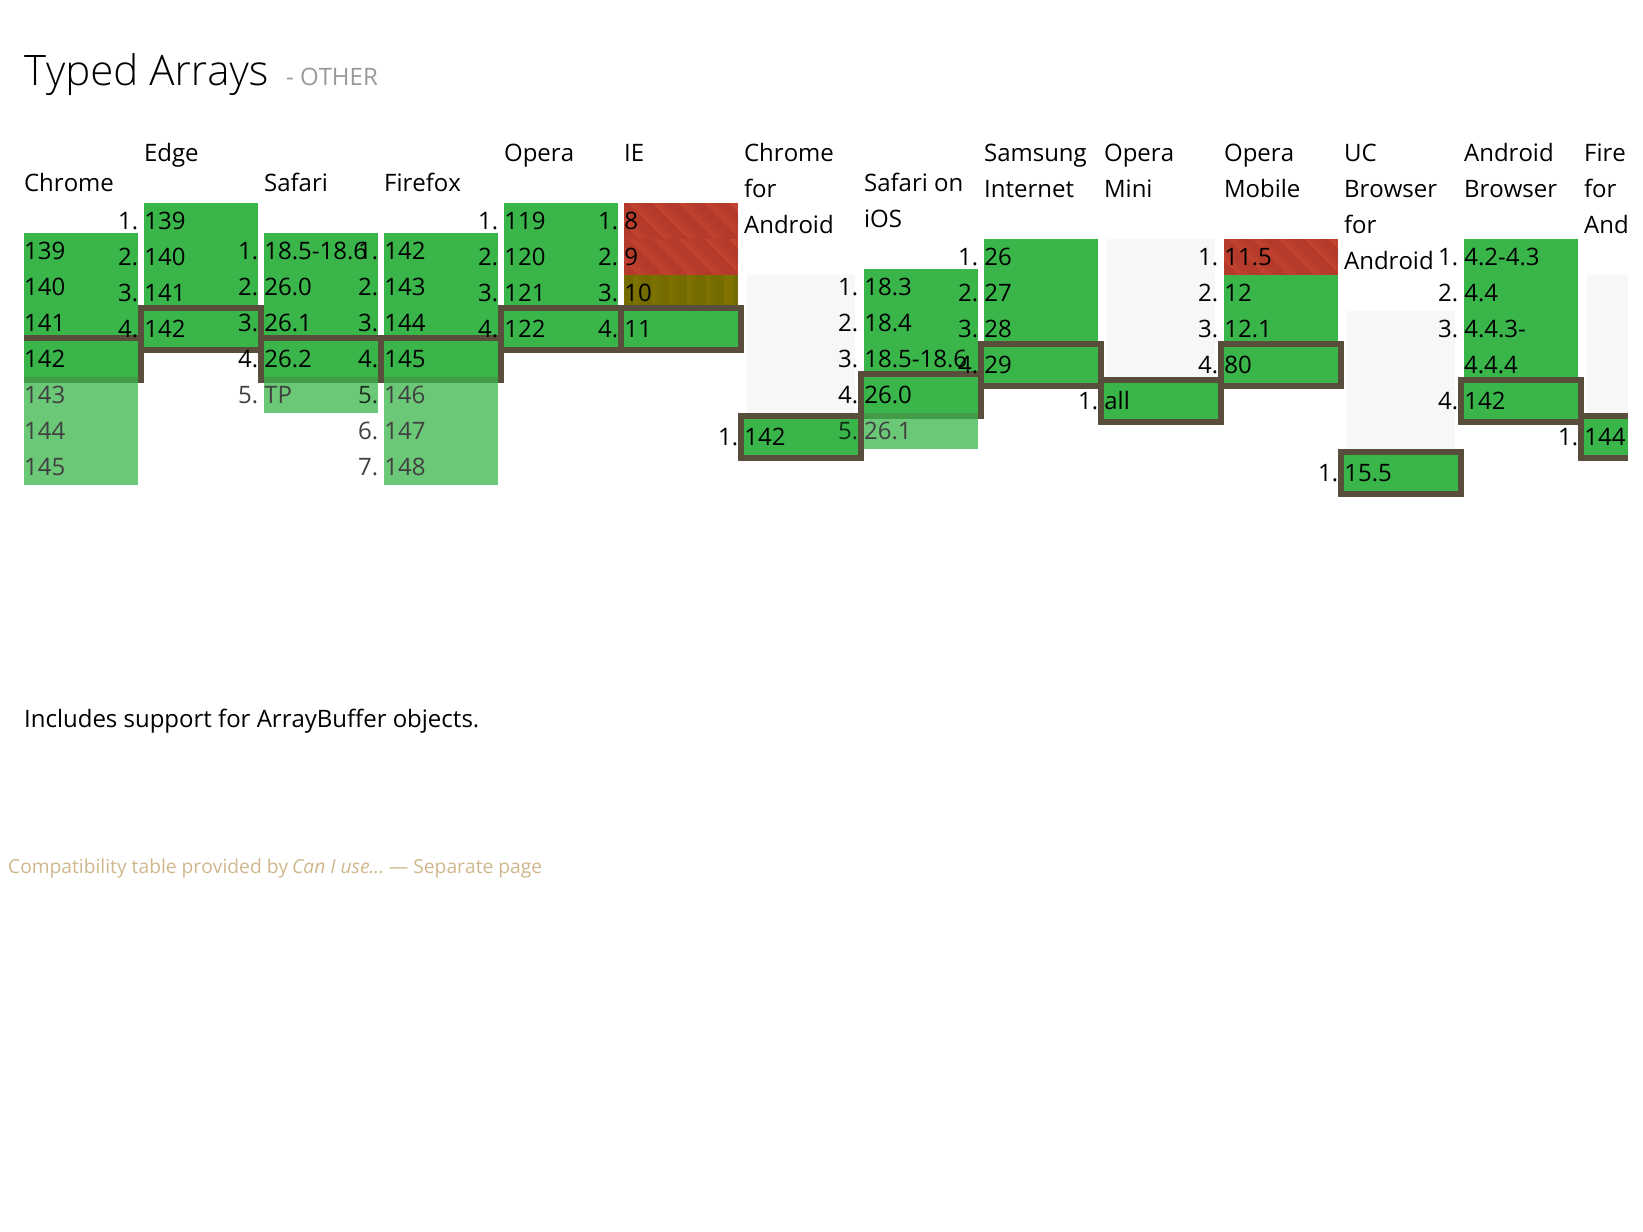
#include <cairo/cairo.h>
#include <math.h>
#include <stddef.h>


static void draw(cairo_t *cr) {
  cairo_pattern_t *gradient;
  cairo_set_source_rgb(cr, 1, 1, 1);
  cairo_paint(cr);
  cairo_set_source_rgb(cr, 57 / 255.0, 181 / 255.0, 74 / 255.0);
  cairo_rectangle(cr, 24, 233, 114, 102);
  cairo_fill(cr);
  cairo_rectangle(cr, 24, 341, 114, 36);
  cairo_fill(cr);
  cairo_save(cr);
  cairo_rectangle(cr, 24, 96, 1604, 545);
  cairo_clip(cr);
  cairo_rectangle(cr, 21, 338, 120, 42);
  cairo_set_source_rgb(cr, 88 / 255.0, 78 / 255.0, 59 / 255.0);
  cairo_set_line_width(cr, 6);
  cairo_stroke(cr);
  cairo_restore(cr);
  cairo_set_source_rgba(cr, 57 / 255.0, 181 / 255.0, 74 / 255.0, 0.75);
  cairo_rectangle(cr, 24, 377, 114, 36);
  cairo_fill(cr);
  cairo_set_source_rgb(cr, 107 / 255.0, 200 / 255.0, 119 / 255.0);
  cairo_rectangle(cr, 24, 413, 114, 72);
  cairo_fill(cr);
  cairo_set_source_rgb(cr, 57 / 255.0, 181 / 255.0, 74 / 255.0);
  cairo_rectangle(cr, 144, 203, 114, 102);
  cairo_fill(cr);
  cairo_rectangle(cr, 144, 311, 114, 36);
  cairo_fill(cr);
  cairo_rectangle(cr, 264, 233, 114, 102);
  cairo_fill(cr);
  cairo_rectangle(cr, 264, 341, 114, 36);
  cairo_fill(cr);
  cairo_rectangle(cr, 384, 233, 114, 102);
  cairo_fill(cr);
  cairo_rectangle(cr, 384, 341, 114, 36);
  cairo_fill(cr);
  cairo_set_source_rgb(cr, 107 / 255.0, 200 / 255.0, 119 / 255.0);
  cairo_rectangle(cr, 384, 413, 114, 72);
  cairo_fill(cr);
  cairo_set_source_rgb(cr, 57 / 255.0, 181 / 255.0, 74 / 255.0);
  cairo_rectangle(cr, 504, 203, 114, 102);
  cairo_fill(cr);
  cairo_rectangle(cr, 504, 311, 114, 36);
  cairo_fill(cr);
  gradient = cairo_pattern_create_linear(644, 258, 720, 182);
  cairo_pattern_add_color_stop_rgba(gradient, 0, 196 / 255.0, 66 / 255.0, 48 / 255.0, 1);
  cairo_pattern_add_color_stop_rgba(gradient, 0.01, 180 / 255.0, 59 / 255.0, 43 / 255.0, 1);
  cairo_pattern_add_color_stop_rgba(gradient, 0.09, 180 / 255.0, 59 / 255.0, 43 / 255.0, 1);
  cairo_pattern_add_color_stop_rgba(gradient, 0.09, 196 / 255.0, 66 / 255.0, 48 / 255.0, 1);
  cairo_pattern_add_color_stop_rgba(gradient, 0.18, 180 / 255.0, 59 / 255.0, 43 / 255.0, 1);
  cairo_pattern_add_color_stop_rgba(gradient, 0.26, 180 / 255.0, 59 / 255.0, 43 / 255.0, 1);
  cairo_pattern_add_color_stop_rgba(gradient, 0.26, 196 / 255.0, 66 / 255.0, 48 / 255.0, 1);
  cairo_pattern_add_color_stop_rgba(gradient, 0.35, 180 / 255.0, 59 / 255.0, 43 / 255.0, 1);
  cairo_pattern_add_color_stop_rgba(gradient, 0.42, 180 / 255.0, 59 / 255.0, 43 / 255.0, 1);
  cairo_pattern_add_color_stop_rgba(gradient, 0.42, 196 / 255.0, 66 / 255.0, 48 / 255.0, 1);
  cairo_pattern_add_color_stop_rgba(gradient, 0.51, 180 / 255.0, 59 / 255.0, 43 / 255.0, 1);
  cairo_pattern_add_color_stop_rgba(gradient, 0.59, 180 / 255.0, 59 / 255.0, 43 / 255.0, 1);
  cairo_pattern_add_color_stop_rgba(gradient, 0.59, 196 / 255.0, 66 / 255.0, 48 / 255.0, 1);
  cairo_pattern_add_color_stop_rgba(gradient, 0.68, 180 / 255.0, 59 / 255.0, 43 / 255.0, 1);
  cairo_pattern_add_color_stop_rgba(gradient, 0.76, 180 / 255.0, 59 / 255.0, 43 / 255.0, 1);
  cairo_pattern_add_color_stop_rgba(gradient, 0.76, 196 / 255.0, 66 / 255.0, 48 / 255.0, 1);
  cairo_pattern_add_color_stop_rgba(gradient, 0.85, 180 / 255.0, 59 / 255.0, 43 / 255.0, 1);
  cairo_pattern_add_color_stop_rgba(gradient, 0.92, 180 / 255.0, 59 / 255.0, 43 / 255.0, 1);
  cairo_pattern_add_color_stop_rgba(gradient, 0.92, 196 / 255.0, 66 / 255.0, 48 / 255.0, 1);
  cairo_pattern_add_color_stop_rgba(gradient, 1, 196 / 255.0, 66 / 255.0, 48 / 255.0, 1);
  cairo_set_source(cr, gradient);
  cairo_pattern_destroy(gradient);
  cairo_rectangle(cr, 624, 203, 114, 36);
  cairo_fill(cr);
  gradient = cairo_pattern_create_linear(644, 294, 720, 218);
  cairo_pattern_add_color_stop_rgba(gradient, 0, 196 / 255.0, 66 / 255.0, 48 / 255.0, 1);
  cairo_pattern_add_color_stop_rgba(gradient, 0.01, 180 / 255.0, 59 / 255.0, 43 / 255.0, 1);
  cairo_pattern_add_color_stop_rgba(gradient, 0.09, 180 / 255.0, 59 / 255.0, 43 / 255.0, 1);
  cairo_pattern_add_color_stop_rgba(gradient, 0.09, 196 / 255.0, 66 / 255.0, 48 / 255.0, 1);
  cairo_pattern_add_color_stop_rgba(gradient, 0.18, 180 / 255.0, 59 / 255.0, 43 / 255.0, 1);
  cairo_pattern_add_color_stop_rgba(gradient, 0.26, 180 / 255.0, 59 / 255.0, 43 / 255.0, 1);
  cairo_pattern_add_color_stop_rgba(gradient, 0.26, 196 / 255.0, 66 / 255.0, 48 / 255.0, 1);
  cairo_pattern_add_color_stop_rgba(gradient, 0.35, 180 / 255.0, 59 / 255.0, 43 / 255.0, 1);
  cairo_pattern_add_color_stop_rgba(gradient, 0.42, 180 / 255.0, 59 / 255.0, 43 / 255.0, 1);
  cairo_pattern_add_color_stop_rgba(gradient, 0.42, 196 / 255.0, 66 / 255.0, 48 / 255.0, 1);
  cairo_pattern_add_color_stop_rgba(gradient, 0.51, 180 / 255.0, 59 / 255.0, 43 / 255.0, 1);
  cairo_pattern_add_color_stop_rgba(gradient, 0.59, 180 / 255.0, 59 / 255.0, 43 / 255.0, 1);
  cairo_pattern_add_color_stop_rgba(gradient, 0.59, 196 / 255.0, 66 / 255.0, 48 / 255.0, 1);
  cairo_pattern_add_color_stop_rgba(gradient, 0.68, 180 / 255.0, 59 / 255.0, 43 / 255.0, 1);
  cairo_pattern_add_color_stop_rgba(gradient, 0.76, 180 / 255.0, 59 / 255.0, 43 / 255.0, 1);
  cairo_pattern_add_color_stop_rgba(gradient, 0.76, 196 / 255.0, 66 / 255.0, 48 / 255.0, 1);
  cairo_pattern_add_color_stop_rgba(gradient, 0.85, 180 / 255.0, 59 / 255.0, 43 / 255.0, 1);
  cairo_pattern_add_color_stop_rgba(gradient, 0.92, 180 / 255.0, 59 / 255.0, 43 / 255.0, 1);
  cairo_pattern_add_color_stop_rgba(gradient, 0.92, 196 / 255.0, 66 / 255.0, 48 / 255.0, 1);
  cairo_pattern_add_color_stop_rgba(gradient, 1, 196 / 255.0, 66 / 255.0, 48 / 255.0, 1);
  cairo_set_source(cr, gradient);
  cairo_pattern_destroy(gradient);
  cairo_rectangle(cr, 624, 239, 114, 36);
  cairo_fill(cr);
  gradient = cairo_pattern_create_linear(624, 293, 750, 293);
  cairo_pattern_add_color_stop_rgba(gradient, 0, 128 / 255.0, 115 / 255.0, 1 / 255.0, 1);
  cairo_pattern_add_color_stop_rgba(gradient, 0.01, 116 / 255.0, 108 / 255.0, 0, 1);
  cairo_pattern_add_color_stop_rgba(gradient, 0.08, 116 / 255.0, 108 / 255.0, 0, 1);
  cairo_pattern_add_color_stop_rgba(gradient, 0.08, 128 / 255.0, 115 / 255.0, 1 / 255.0, 1);
  cairo_pattern_add_color_stop_rgba(gradient, 0.15, 116 / 255.0, 108 / 255.0, 0, 1);
  cairo_pattern_add_color_stop_rgba(gradient, 0.22, 116 / 255.0, 108 / 255.0, 0, 1);
  cairo_pattern_add_color_stop_rgba(gradient, 0.22, 128 / 255.0, 115 / 255.0, 1 / 255.0, 1);
  cairo_pattern_add_color_stop_rgba(gradient, 0.3, 116 / 255.0, 108 / 255.0, 0, 1);
  cairo_pattern_add_color_stop_rgba(gradient, 0.36, 116 / 255.0, 108 / 255.0, 0, 1);
  cairo_pattern_add_color_stop_rgba(gradient, 0.36, 128 / 255.0, 115 / 255.0, 1 / 255.0, 1);
  cairo_pattern_add_color_stop_rgba(gradient, 0.44, 116 / 255.0, 108 / 255.0, 0, 1);
  cairo_pattern_add_color_stop_rgba(gradient, 0.5, 116 / 255.0, 108 / 255.0, 0, 1);
  cairo_pattern_add_color_stop_rgba(gradient, 0.5, 128 / 255.0, 115 / 255.0, 1 / 255.0, 1);
  cairo_pattern_add_color_stop_rgba(gradient, 0.58, 116 / 255.0, 108 / 255.0, 0, 1);
  cairo_pattern_add_color_stop_rgba(gradient, 0.65, 116 / 255.0, 108 / 255.0, 0, 1);
  cairo_pattern_add_color_stop_rgba(gradient, 0.65, 128 / 255.0, 115 / 255.0, 1 / 255.0, 1);
  cairo_pattern_add_color_stop_rgba(gradient, 0.73, 116 / 255.0, 108 / 255.0, 0, 1);
  cairo_pattern_add_color_stop_rgba(gradient, 0.79, 116 / 255.0, 108 / 255.0, 0, 1);
  cairo_pattern_add_color_stop_rgba(gradient, 0.79, 128 / 255.0, 115 / 255.0, 1 / 255.0, 1);
  cairo_pattern_add_color_stop_rgba(gradient, 0.86, 128 / 255.0, 115 / 255.0, 1 / 255.0, 1);
  cairo_pattern_add_color_stop_rgba(gradient, 0.87, 116 / 255.0, 108 / 255.0, 0, 1);
  cairo_pattern_add_color_stop_rgba(gradient, 0.93, 116 / 255.0, 108 / 255.0, 0, 1);
  cairo_pattern_add_color_stop_rgba(gradient, 0.93, 128 / 255.0, 115 / 255.0, 1 / 255.0, 1);
  cairo_pattern_add_color_stop_rgba(gradient, 1, 128 / 255.0, 115 / 255.0, 1 / 255.0, 1);
  cairo_set_source(cr, gradient);
  cairo_pattern_destroy(gradient);
  cairo_rectangle(cr, 624, 275, 114, 30);
  cairo_fill(cr);
  cairo_set_source_rgb(cr, 57 / 255.0, 181 / 255.0, 74 / 255.0);
  cairo_rectangle(cr, 624, 311, 114, 36);
  cairo_fill(cr);
  cairo_set_source_rgb(cr, 247 / 255.0, 247 / 255.0, 247 / 255.0);
  cairo_rectangle(cr, 747, 275, 108, 138);
  cairo_fill(cr);
  cairo_set_source_rgb(cr, 57 / 255.0, 181 / 255.0, 74 / 255.0);
  cairo_rectangle(cr, 744, 419, 114, 36);
  cairo_fill(cr);
  cairo_rectangle(cr, 864, 269, 114, 102);
  cairo_fill(cr);
  cairo_rectangle(cr, 864, 377, 114, 36);
  cairo_fill(cr);
  cairo_rectangle(cr, 984, 239, 114, 102);
  cairo_fill(cr);
  cairo_rectangle(cr, 984, 347, 114, 36);
  cairo_fill(cr);
  cairo_set_source_rgb(cr, 247 / 255.0, 247 / 255.0, 247 / 255.0);
  cairo_rectangle(cr, 1107, 239, 108, 138);
  cairo_fill(cr);
  cairo_set_source_rgb(cr, 57 / 255.0, 181 / 255.0, 74 / 255.0);
  cairo_rectangle(cr, 1104, 383, 114, 36);
  cairo_fill(cr);
  gradient = cairo_pattern_create_linear(1244, 294, 1320, 218);
  cairo_pattern_add_color_stop_rgba(gradient, 0, 196 / 255.0, 66 / 255.0, 48 / 255.0, 1);
  cairo_pattern_add_color_stop_rgba(gradient, 0.01, 180 / 255.0, 59 / 255.0, 43 / 255.0, 1);
  cairo_pattern_add_color_stop_rgba(gradient, 0.09, 180 / 255.0, 59 / 255.0, 43 / 255.0, 1);
  cairo_pattern_add_color_stop_rgba(gradient, 0.09, 196 / 255.0, 66 / 255.0, 48 / 255.0, 1);
  cairo_pattern_add_color_stop_rgba(gradient, 0.18, 180 / 255.0, 59 / 255.0, 43 / 255.0, 1);
  cairo_pattern_add_color_stop_rgba(gradient, 0.26, 180 / 255.0, 59 / 255.0, 43 / 255.0, 1);
  cairo_pattern_add_color_stop_rgba(gradient, 0.26, 196 / 255.0, 66 / 255.0, 48 / 255.0, 1);
  cairo_pattern_add_color_stop_rgba(gradient, 0.35, 180 / 255.0, 59 / 255.0, 43 / 255.0, 1);
  cairo_pattern_add_color_stop_rgba(gradient, 0.42, 180 / 255.0, 59 / 255.0, 43 / 255.0, 1);
  cairo_pattern_add_color_stop_rgba(gradient, 0.42, 196 / 255.0, 66 / 255.0, 48 / 255.0, 1);
  cairo_pattern_add_color_stop_rgba(gradient, 0.51, 180 / 255.0, 59 / 255.0, 43 / 255.0, 1);
  cairo_pattern_add_color_stop_rgba(gradient, 0.59, 180 / 255.0, 59 / 255.0, 43 / 255.0, 1);
  cairo_pattern_add_color_stop_rgba(gradient, 0.59, 196 / 255.0, 66 / 255.0, 48 / 255.0, 1);
  cairo_pattern_add_color_stop_rgba(gradient, 0.68, 180 / 255.0, 59 / 255.0, 43 / 255.0, 1);
  cairo_pattern_add_color_stop_rgba(gradient, 0.76, 180 / 255.0, 59 / 255.0, 43 / 255.0, 1);
  cairo_pattern_add_color_stop_rgba(gradient, 0.76, 196 / 255.0, 66 / 255.0, 48 / 255.0, 1);
  cairo_pattern_add_color_stop_rgba(gradient, 0.85, 180 / 255.0, 59 / 255.0, 43 / 255.0, 1);
  cairo_pattern_add_color_stop_rgba(gradient, 0.92, 180 / 255.0, 59 / 255.0, 43 / 255.0, 1);
  cairo_pattern_add_color_stop_rgba(gradient, 0.92, 196 / 255.0, 66 / 255.0, 48 / 255.0, 1);
  cairo_pattern_add_color_stop_rgba(gradient, 1, 196 / 255.0, 66 / 255.0, 48 / 255.0, 1);
  cairo_set_source(cr, gradient);
  cairo_pattern_destroy(gradient);
  cairo_rectangle(cr, 1224, 239, 114, 36);
  cairo_fill(cr);
  cairo_set_source_rgb(cr, 57 / 255.0, 181 / 255.0, 74 / 255.0);
  cairo_rectangle(cr, 1224, 275, 114, 66);
  cairo_fill(cr);
  cairo_rectangle(cr, 1224, 347, 114, 36);
  cairo_fill(cr);
  cairo_set_source_rgb(cr, 247 / 255.0, 247 / 255.0, 247 / 255.0);
  cairo_rectangle(cr, 1347, 311, 108, 138);
  cairo_fill(cr);
  cairo_set_source_rgb(cr, 57 / 255.0, 181 / 255.0, 74 / 255.0);
  cairo_rectangle(cr, 1344, 455, 114, 36);
  cairo_fill(cr);
  cairo_rectangle(cr, 1464, 239, 114, 138);
  cairo_fill(cr);
  cairo_rectangle(cr, 1464, 383, 114, 36);
  cairo_fill(cr);
  cairo_set_source_rgb(cr, 247 / 255.0, 247 / 255.0, 247 / 255.0);
  cairo_rectangle(cr, 1587, 275, 41, 138);
  cairo_fill(cr);
  cairo_set_source_rgb(cr, 57 / 255.0, 181 / 255.0, 74 / 255.0);
  cairo_rectangle(cr, 1584, 419, 44, 36);
  cairo_fill(cr);
  cairo_select_font_face(cr, "Open Sans Light", CAIRO_FONT_SLANT_NORMAL, CAIRO_FONT_WEIGHT_NORMAL);
  cairo_set_font_size(cr, 42);
  cairo_set_source_rgb(cr, 0, 0, 0);
  cairo_move_to(cr, 24, 85);
  cairo_show_text(cr, "Typed Arrays");
  cairo_select_font_face(cr, "Open Sans", CAIRO_FONT_SLANT_NORMAL, CAIRO_FONT_WEIGHT_NORMAL);
  cairo_set_font_size(cr, 24);
  cairo_set_source_rgb(cr, 153 / 255.0, 153 / 255.0, 153 / 255.0);
  cairo_move_to(cr, 286, 85);
  cairo_show_text(cr, "- OTHER");
  cairo_set_source_rgb(cr, 0, 0, 0);
  cairo_move_to(cr, 24, 191);
  cairo_show_text(cr, "Chrome");
  cairo_move_to(cr, 24, 259);
  cairo_show_text(cr, "139");
  cairo_move_to(cr, 24, 295);
  cairo_show_text(cr, "140");
  cairo_move_to(cr, 24, 331);
  cairo_show_text(cr, "141");
  cairo_move_to(cr, 24, 367);
  cairo_show_text(cr, "142");
  cairo_set_source_rgb(cr, 64 / 255.0, 64 / 255.0, 64 / 255.0);
  cairo_move_to(cr, 24, 403);
  cairo_show_text(cr, "143");
  cairo_move_to(cr, 24, 439);
  cairo_show_text(cr, "144");
  cairo_move_to(cr, 24, 475);
  cairo_show_text(cr, "145");
  cairo_set_source_rgb(cr, 0, 0, 0);
  cairo_move_to(cr, 144, 161);
  cairo_show_text(cr, "Edge");
  cairo_move_to(cr, 118, 229);
  cairo_show_text(cr, "1. 139");
  cairo_move_to(cr, 118, 265);
  cairo_show_text(cr, "2. 140");
  cairo_move_to(cr, 118, 301);
  cairo_show_text(cr, "3. 141");
  cairo_move_to(cr, 118, 337);
  cairo_show_text(cr, "4. 142");
  cairo_rectangle(cr, 141, 308, 120, 42);
  cairo_set_source_rgb(cr, 88 / 255.0, 78 / 255.0, 59 / 255.0);
  cairo_set_line_width(cr, 6);
  cairo_stroke(cr);
  cairo_set_source_rgb(cr, 0, 0, 0);
  cairo_move_to(cr, 264, 191);
  cairo_show_text(cr, "Safari");
  cairo_move_to(cr, 238, 259);
  cairo_show_text(cr, "1. 18.5-18.6");
  cairo_move_to(cr, 238, 295);
  cairo_show_text(cr, "2. 26.0");
  cairo_move_to(cr, 238, 331);
  cairo_show_text(cr, "3. 26.1");
  cairo_move_to(cr, 238, 367);
  cairo_show_text(cr, "4. 26.2");
  cairo_rectangle(cr, 261, 338, 120, 42);
  cairo_set_source_rgb(cr, 88 / 255.0, 78 / 255.0, 59 / 255.0);
  cairo_stroke(cr);
  cairo_set_source_rgba(cr, 57 / 255.0, 181 / 255.0, 74 / 255.0, 0.75);
  cairo_rectangle(cr, 264, 377, 114, 36);
  cairo_fill(cr);
  cairo_set_source_rgb(cr, 64 / 255.0, 64 / 255.0, 64 / 255.0);
  cairo_move_to(cr, 238, 403);
  cairo_show_text(cr, "5. TP");
  cairo_set_source_rgb(cr, 0, 0, 0);
  cairo_move_to(cr, 384, 191);
  cairo_show_text(cr, "Firefox");
  cairo_move_to(cr, 358, 259);
  cairo_show_text(cr, "1. 142");
  cairo_move_to(cr, 358, 295);
  cairo_show_text(cr, "2. 143");
  cairo_move_to(cr, 358, 331);
  cairo_show_text(cr, "3. 144");
  cairo_move_to(cr, 358, 367);
  cairo_show_text(cr, "4. 145");
  cairo_rectangle(cr, 381, 338, 120, 42);
  cairo_set_source_rgb(cr, 88 / 255.0, 78 / 255.0, 59 / 255.0);
  cairo_stroke(cr);
  cairo_set_source_rgba(cr, 57 / 255.0, 181 / 255.0, 74 / 255.0, 0.75);
  cairo_rectangle(cr, 384, 377, 114, 36);
  cairo_fill(cr);
  cairo_set_source_rgb(cr, 27 / 255.0, 50 / 255.0, 30 / 255.0);
  cairo_move_to(cr, 358, 403);
  cairo_show_text(cr, "5.");
  cairo_set_source_rgb(cr, 64 / 255.0, 64 / 255.0, 64 / 255.0);
  cairo_move_to(cr, 384, 403);
  cairo_show_text(cr, "146");
  cairo_move_to(cr, 358, 439);
  cairo_show_text(cr, "6. 147");
  cairo_move_to(cr, 358, 475);
  cairo_show_text(cr, "7. 148");
  cairo_set_source_rgb(cr, 0, 0, 0);
  cairo_move_to(cr, 504, 161);
  cairo_show_text(cr, "Opera");
  cairo_move_to(cr, 478, 229);
  cairo_show_text(cr, "1. 119");
  cairo_move_to(cr, 478, 265);
  cairo_show_text(cr, "2. 120");
  cairo_move_to(cr, 478, 301);
  cairo_show_text(cr, "3. 121");
  cairo_move_to(cr, 478, 337);
  cairo_show_text(cr, "4. 122");
  cairo_rectangle(cr, 501, 308, 120, 42);
  cairo_set_source_rgb(cr, 88 / 255.0, 78 / 255.0, 59 / 255.0);
  cairo_stroke(cr);
  cairo_set_source_rgb(cr, 0, 0, 0);
  cairo_move_to(cr, 624, 161);
  cairo_show_text(cr, "IE");
  cairo_move_to(cr, 598, 229);
  cairo_show_text(cr, "1. 8");
  cairo_move_to(cr, 598, 265);
  cairo_show_text(cr, "2. 9");
  cairo_move_to(cr, 598, 301);
  cairo_show_text(cr, "3. 10");
  cairo_move_to(cr, 598, 337);
  cairo_show_text(cr, "4. 11");
  cairo_rectangle(cr, 621, 308, 120, 42);
  cairo_set_source_rgb(cr, 88 / 255.0, 78 / 255.0, 59 / 255.0);
  cairo_stroke(cr);
  cairo_set_source_rgb(cr, 0, 0, 0);
  cairo_move_to(cr, 744, 161);
  cairo_show_text(cr, "Chrome");
  cairo_move_to(cr, 744, 197);
  cairo_show_text(cr, "for");
  cairo_move_to(cr, 744, 233);
  cairo_show_text(cr, "Android");
  cairo_move_to(cr, 718, 445);
  cairo_show_text(cr, "1. 142");
  cairo_rectangle(cr, 741, 416, 120, 42);
  cairo_set_source_rgb(cr, 88 / 255.0, 78 / 255.0, 59 / 255.0);
  cairo_stroke(cr);
  cairo_set_source_rgb(cr, 0, 0, 0);
  cairo_move_to(cr, 864, 191);
  cairo_show_text(cr, "Safari on");
  cairo_move_to(cr, 864, 227);
  cairo_show_text(cr, "iOS");
  cairo_move_to(cr, 838, 295);
  cairo_show_text(cr, "1. 18.3");
  cairo_move_to(cr, 838, 331);
  cairo_show_text(cr, "2. 18.4");
  cairo_move_to(cr, 838, 367);
  cairo_show_text(cr, "3. 18.5-18.6");
  cairo_move_to(cr, 838, 403);
  cairo_show_text(cr, "4. 26.0");
  cairo_rectangle(cr, 861, 374, 120, 42);
  cairo_set_source_rgb(cr, 88 / 255.0, 78 / 255.0, 59 / 255.0);
  cairo_stroke(cr);
  cairo_set_source_rgba(cr, 57 / 255.0, 181 / 255.0, 74 / 255.0, 0.75);
  cairo_rectangle(cr, 864, 413, 114, 36);
  cairo_fill(cr);
  cairo_set_source_rgb(cr, 14 / 255.0, 45 / 255.0, 19 / 255.0);
  cairo_move_to(cr, 838, 439);
  cairo_show_text(cr, "5.");
  cairo_set_source_rgb(cr, 64 / 255.0, 64 / 255.0, 64 / 255.0);
  cairo_move_to(cr, 864, 439);
  cairo_show_text(cr, "26.1");
  cairo_set_source_rgb(cr, 0, 0, 0);
  cairo_move_to(cr, 984, 161);
  cairo_show_text(cr, "Samsung");
  cairo_move_to(cr, 984, 197);
  cairo_show_text(cr, "Internet");
  cairo_move_to(cr, 958, 265);
  cairo_show_text(cr, "1. 26");
  cairo_move_to(cr, 958, 301);
  cairo_show_text(cr, "2. 27");
  cairo_move_to(cr, 958, 337);
  cairo_show_text(cr, "3. 28");
  cairo_move_to(cr, 958, 373);
  cairo_show_text(cr, "4. 29");
  cairo_rectangle(cr, 981, 344, 120, 42);
  cairo_set_source_rgb(cr, 88 / 255.0, 78 / 255.0, 59 / 255.0);
  cairo_stroke(cr);
  cairo_set_source_rgb(cr, 0, 0, 0);
  cairo_move_to(cr, 1104, 161);
  cairo_show_text(cr, "Opera");
  cairo_move_to(cr, 1104, 197);
  cairo_show_text(cr, "Mini");
  cairo_move_to(cr, 1078, 409);
  cairo_show_text(cr, "1. all");
  cairo_rectangle(cr, 1101, 380, 120, 42);
  cairo_set_source_rgb(cr, 88 / 255.0, 78 / 255.0, 59 / 255.0);
  cairo_stroke(cr);
  cairo_set_source_rgb(cr, 0, 0, 0);
  cairo_move_to(cr, 1224, 161);
  cairo_show_text(cr, "Opera");
  cairo_move_to(cr, 1224, 197);
  cairo_show_text(cr, "Mobile");
  cairo_move_to(cr, 1198, 265);
  cairo_show_text(cr, "1. 11.5");
  cairo_move_to(cr, 1198, 301);
  cairo_show_text(cr, "2. 12");
  cairo_move_to(cr, 1198, 337);
  cairo_show_text(cr, "3. 12.1");
  cairo_move_to(cr, 1198, 373);
  cairo_show_text(cr, "4. 80");
  cairo_rectangle(cr, 1221, 344, 120, 42);
  cairo_set_source_rgb(cr, 88 / 255.0, 78 / 255.0, 59 / 255.0);
  cairo_stroke(cr);
  cairo_set_source_rgb(cr, 0, 0, 0);
  cairo_move_to(cr, 1344, 161);
  cairo_show_text(cr, "UC");
  cairo_move_to(cr, 1344, 197);
  cairo_show_text(cr, "Browser");
  cairo_move_to(cr, 1344, 233);
  cairo_show_text(cr, "for");
  cairo_move_to(cr, 1344, 269);
  cairo_show_text(cr, "Android");
  cairo_move_to(cr, 1318, 481);
  cairo_show_text(cr, "1. 15.5");
  cairo_rectangle(cr, 1341, 452, 120, 42);
  cairo_set_source_rgb(cr, 88 / 255.0, 78 / 255.0, 59 / 255.0);
  cairo_stroke(cr);
  cairo_set_source_rgb(cr, 0, 0, 0);
  cairo_move_to(cr, 1464, 161);
  cairo_show_text(cr, "Android");
  cairo_move_to(cr, 1464, 197);
  cairo_show_text(cr, "Browser");
  cairo_move_to(cr, 1438, 265);
  cairo_show_text(cr, "1. 4.2-4.3");
  cairo_move_to(cr, 1438, 301);
  cairo_show_text(cr, "2. 4.4");
  cairo_move_to(cr, 1438, 337);
  cairo_show_text(cr, "3. 4.4.3-");
  cairo_move_to(cr, 1464, 373);
  cairo_show_text(cr, "4.4.4");
  cairo_move_to(cr, 1438, 409);
  cairo_show_text(cr, "4. 142");
  cairo_rectangle(cr, 1461, 380, 120, 42);
  cairo_set_source_rgb(cr, 88 / 255.0, 78 / 255.0, 59 / 255.0);
  cairo_stroke(cr);
  cairo_set_source_rgb(cr, 0, 0, 0);
  cairo_move_to(cr, 1584, 161);
  cairo_show_text(cr, "Fire");
  cairo_move_to(cr, 1584, 197);
  cairo_show_text(cr, "for");
  cairo_move_to(cr, 1584, 233);
  cairo_show_text(cr, "And");
  cairo_move_to(cr, 1558, 445);
  cairo_show_text(cr, "1. 144");
  cairo_save(cr);
  cairo_rectangle(cr, 24, 96, 1604, 545);
  cairo_clip(cr);
  cairo_rectangle(cr, 1581, 416, 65, 42);
  cairo_set_source_rgb(cr, 88 / 255.0, 78 / 255.0, 59 / 255.0);
  cairo_stroke(cr);
  cairo_restore(cr);
  cairo_move_to(cr, 24, 727);
  cairo_show_text(cr, "Includes support for ArrayBuffer objects.");
  cairo_set_font_size(cr, 19.25);
  cairo_set_source_rgb(cr, 207 / 255.0, 183 / 255.0, 139 / 255.0);
  cairo_move_to(cr, 8, 873);
  cairo_show_text(cr, "Compatibility table provided by");
  cairo_select_font_face(cr, "Open Sans", CAIRO_FONT_SLANT_ITALIC, CAIRO_FONT_WEIGHT_NORMAL);
  cairo_move_to(cr, 292, 873);
  cairo_show_text(cr, "Can I use...");
  cairo_select_font_face(cr, "Open Sans", CAIRO_FONT_SLANT_NORMAL, CAIRO_FONT_WEIGHT_NORMAL);
  cairo_move_to(cr, 389, 873);
  cairo_show_text(cr, "— Separate page");
}

int main(void) {
  cairo_surface_t *surface = cairo_image_surface_create(CAIRO_FORMAT_RGB24, 1643, 1232);
  cairo_t *cr = cairo_create(surface);
  cairo_font_options_t *options = cairo_font_options_create();
  cairo_font_options_set_hint_metrics(options, CAIRO_HINT_METRICS_OFF);
  cairo_font_options_set_hint_style(options, CAIRO_HINT_STYLE_NONE);
  cairo_set_font_options(cr, options);
  cairo_set_miter_limit(cr, 4);
  draw(cr);
  cairo_surface_write_to_png(surface, "out.png");
  cairo_font_options_destroy(options);
  cairo_destroy(cr);
  cairo_surface_destroy(surface);
  return 0;
}
